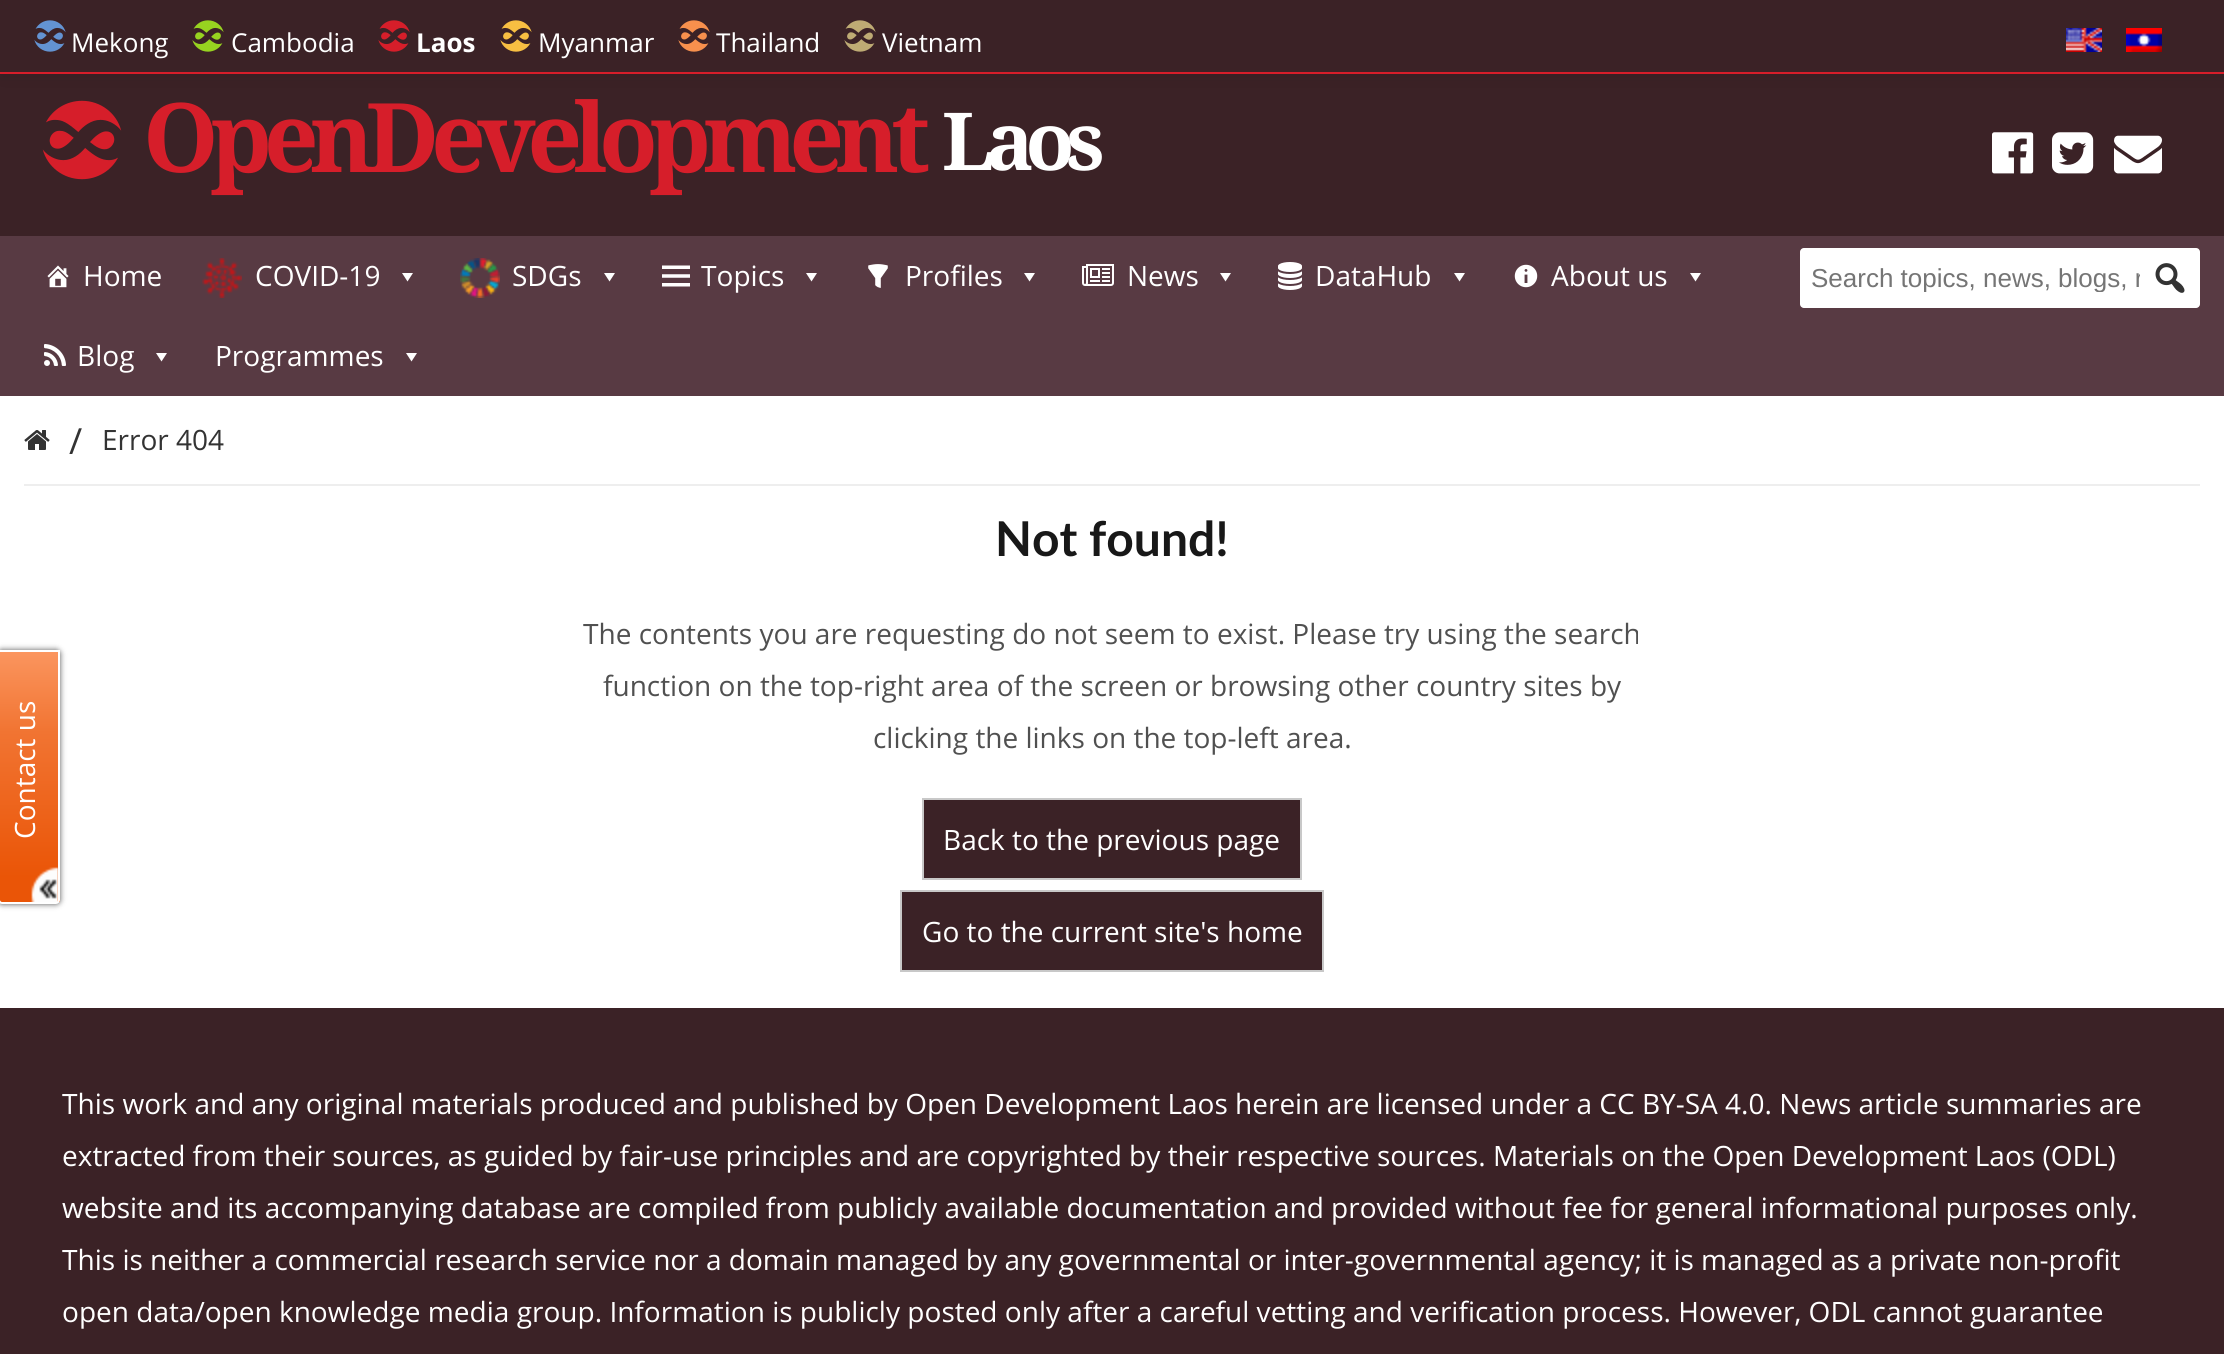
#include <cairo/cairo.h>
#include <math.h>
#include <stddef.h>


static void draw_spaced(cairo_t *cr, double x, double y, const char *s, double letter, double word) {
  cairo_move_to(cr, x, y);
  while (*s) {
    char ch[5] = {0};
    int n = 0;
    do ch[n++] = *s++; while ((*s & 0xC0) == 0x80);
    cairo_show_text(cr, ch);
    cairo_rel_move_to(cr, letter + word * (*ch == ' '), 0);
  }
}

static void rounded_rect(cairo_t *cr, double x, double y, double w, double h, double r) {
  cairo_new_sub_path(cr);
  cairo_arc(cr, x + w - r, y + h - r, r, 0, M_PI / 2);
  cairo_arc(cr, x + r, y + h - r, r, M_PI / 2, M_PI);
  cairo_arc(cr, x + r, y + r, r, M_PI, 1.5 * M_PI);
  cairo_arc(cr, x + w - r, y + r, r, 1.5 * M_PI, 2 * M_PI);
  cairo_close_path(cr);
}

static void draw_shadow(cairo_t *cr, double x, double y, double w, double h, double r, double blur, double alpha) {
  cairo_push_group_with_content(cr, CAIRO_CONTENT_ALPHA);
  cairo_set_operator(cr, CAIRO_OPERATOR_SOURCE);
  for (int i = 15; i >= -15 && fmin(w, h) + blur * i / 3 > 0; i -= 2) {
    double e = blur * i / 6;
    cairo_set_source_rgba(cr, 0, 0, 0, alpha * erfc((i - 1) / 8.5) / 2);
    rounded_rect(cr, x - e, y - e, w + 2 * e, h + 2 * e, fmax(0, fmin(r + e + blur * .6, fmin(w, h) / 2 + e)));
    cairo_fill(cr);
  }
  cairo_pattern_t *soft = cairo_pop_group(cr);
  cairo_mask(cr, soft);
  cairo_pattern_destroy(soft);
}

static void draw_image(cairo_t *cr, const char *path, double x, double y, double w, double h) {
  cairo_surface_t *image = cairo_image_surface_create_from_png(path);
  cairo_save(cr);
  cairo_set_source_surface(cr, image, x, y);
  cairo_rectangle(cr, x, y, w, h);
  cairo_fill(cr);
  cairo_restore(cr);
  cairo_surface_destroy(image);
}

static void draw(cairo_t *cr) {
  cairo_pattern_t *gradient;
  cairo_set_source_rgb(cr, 1, 1, 1);
  cairo_paint(cr);
  cairo_set_source_rgb(cr, 59 / 255.0, 34 / 255.0, 38 / 255.0);
  cairo_rectangle(cr, 0, 74, 2224, 162);
  cairo_fill(cr);
  draw_image(cr, "images/9.png", 42, 100, 80, 80);
  cairo_set_source_rgb(cr, 0, 0, 0);
  draw_shadow(cr, 0, 2, 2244, 74, 0, 10, 0.1);
  cairo_set_source_rgb(cr, 59 / 255.0, 34 / 255.0, 38 / 255.0);
  cairo_rectangle(cr, 0, 0, 2224, 72);
  cairo_fill(cr);
  cairo_set_source_rgb(cr, 214 / 255.0, 30 / 255.0, 42 / 255.0);
  cairo_rectangle(cr, 0, 72, 2224, 2);
  cairo_fill(cr);
  draw_image(cr, "images/1.png", 34, 20, 32, 32);
  draw_image(cr, "images/2.png", 192, 20, 32, 32);
  draw_image(cr, "images/3.png", 378, 20, 32, 32);
  draw_image(cr, "images/4.png", 500, 20, 32, 32);
  draw_image(cr, "images/5.png", 678, 20, 32, 32);
  draw_image(cr, "images/6.png", 844, 20, 32, 32);
  draw_image(cr, "images/7.png", 2066, 28, 36, 24);
  draw_image(cr, "images/8.png", 2126, 28, 36, 24);
  draw_image(cr, "images/10.png", 1992, 132, 42, 42);
  draw_image(cr, "images/11.png", 2052, 132, 42, 42);
  draw_image(cr, "images/12.png", 2114, 135, 48, 39);
  cairo_set_source_rgb(cr, 88 / 255.0, 58 / 255.0, 67 / 255.0);
  cairo_rectangle(cr, 0, 236, 2224, 160);
  cairo_fill(cr);
  draw_image(cr, "images/13.png", 47, 265, 22, 23);
  draw_image(cr, "images/14.png", 202, 258, 40, 40);
  cairo_set_source_rgb(cr, 1, 1, 1);
  cairo_new_path(cr);
  cairo_move_to(cr, 413, 273);
  cairo_line_to(cr, 407.5, 281.5);
  cairo_line_to(cr, 402, 273);
  cairo_close_path(cr);
  cairo_fill(cr);
  draw_image(cr, "images/15.png", 460, 258, 40, 40);
  cairo_new_path(cr);
  cairo_move_to(cr, 615, 273);
  cairo_line_to(cr, 609.5, 281.5);
  cairo_line_to(cr, 604, 273);
  cairo_close_path(cr);
  cairo_fill(cr);
  draw_image(cr, "images/16.png", 662, 265, 28, 22);
  cairo_new_path(cr);
  cairo_move_to(cr, 817, 273);
  cairo_line_to(cr, 811.5, 281.5);
  cairo_line_to(cr, 806, 273);
  cairo_close_path(cr);
  cairo_fill(cr);
  draw_image(cr, "images/17.png", 868, 264, 20, 24);
  cairo_new_path(cr);
  cairo_move_to(cr, 1035, 273);
  cairo_line_to(cr, 1029.5, 281.5);
  cairo_line_to(cr, 1024, 273);
  cairo_close_path(cr);
  cairo_fill(cr);
  draw_image(cr, "images/18.png", 1082, 264, 32, 22);
  cairo_new_path(cr);
  cairo_move_to(cr, 1231, 273);
  cairo_line_to(cr, 1225.5, 281.5);
  cairo_line_to(cr, 1220, 273);
  cairo_close_path(cr);
  cairo_fill(cr);
  draw_image(cr, "images/19.png", 1278, 262, 24, 28);
  cairo_new_path(cr);
  cairo_move_to(cr, 1465, 273);
  cairo_line_to(cr, 1459.5, 281.5);
  cairo_line_to(cr, 1454, 273);
  cairo_close_path(cr);
  cairo_fill(cr);
  draw_image(cr, "images/20.png", 1514, 264, 24, 24);
  cairo_new_path(cr);
  cairo_move_to(cr, 1701, 273);
  cairo_line_to(cr, 1695.5, 281.5);
  cairo_line_to(cr, 1690, 273);
  cairo_close_path(cr);
  cairo_fill(cr);
  rounded_rect(cr, 1800, 248, 400, 60, 4);
  cairo_fill(cr);
  draw_image(cr, "images/21.png", 2155, 263, 30, 30);
  draw_image(cr, "images/22.png", 44, 344, 22, 22);
  cairo_new_path(cr);
  cairo_move_to(cr, 167, 353);
  cairo_line_to(cr, 161.5, 361.5);
  cairo_line_to(cr, 156, 353);
  cairo_close_path(cr);
  cairo_fill(cr);
  cairo_new_path(cr);
  cairo_move_to(cr, 417, 353);
  cairo_line_to(cr, 411.5, 361.5);
  cairo_line_to(cr, 406, 353);
  cairo_close_path(cr);
  cairo_fill(cr);
  cairo_set_source_rgb(cr, 238 / 255.0, 238 / 255.0, 238 / 255.0);
  cairo_rectangle(cr, 24, 484, 2176, 2);
  cairo_fill(cr);
  draw_image(cr, "images/23.png", 24, 430, 26, 20);
  cairo_set_source_rgb(cr, 85 / 255.0, 85 / 255.0, 85 / 255.0);
  draw_shadow(cr, -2, 650, 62, 254, 4, 3, 1);
  gradient = cairo_pattern_create_linear(29, 652, 29, 902);
  cairo_pattern_add_color_stop_rgba(gradient, 0, 254 / 255.0, 204 / 255.0, 177 / 255.0, 1);
  cairo_pattern_add_color_stop_rgba(gradient, 0, 251 / 255.0, 149 / 255.0, 94 / 255.0, 1);
  cairo_pattern_add_color_stop_rgba(gradient, 0.32, 241 / 255.0, 116 / 255.0, 50 / 255.0, 1);
  cairo_pattern_add_color_stop_rgba(gradient, 0.9, 234 / 255.0, 85 / 255.0, 7 / 255.0, 1);
  cairo_set_source(cr, gradient);
  cairo_pattern_destroy(gradient);
  cairo_rectangle(cr, 0, 652, 60, 250);
  cairo_fill(cr);
  cairo_new_path(cr);
  cairo_move_to(cr, -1, 651);
  cairo_line_to(cr, 59, 651);
  cairo_line_to(cr, 59, 900);
  cairo_curve_to(cr, 59, 901.5, 57.5, 903, 56, 903);
  cairo_line_to(cr, 2, 903);
  cairo_curve_to(cr, 0.5, 903, -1, 901.5, -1, 900);
  cairo_close_path(cr);
  cairo_set_source_rgb(cr, 1, 1, 1);
  cairo_stroke(cr);
  draw_image(cr, "images/24.png", 31, 867, 27, 35);
  cairo_set_source_rgb(cr, 59 / 255.0, 34 / 255.0, 38 / 255.0);
  cairo_rectangle(cr, 923, 799, 378, 80);
  cairo_fill_preserve(cr);
  cairo_set_source_rgb(cr, 200 / 255.0, 200 / 255.0, 200 / 255.0);
  cairo_stroke(cr);
  cairo_set_source_rgb(cr, 59 / 255.0, 34 / 255.0, 38 / 255.0);
  cairo_rectangle(cr, 901, 891, 422, 80);
  cairo_fill_preserve(cr);
  cairo_set_source_rgb(cr, 200 / 255.0, 200 / 255.0, 200 / 255.0);
  cairo_stroke(cr);
  cairo_set_source_rgb(cr, 59 / 255.0, 34 / 255.0, 38 / 255.0);
  cairo_rectangle(cr, 0, 1008, 2224, 346);
  cairo_fill(cr);
  cairo_select_font_face(cr, "Open Sans", CAIRO_FONT_SLANT_NORMAL, CAIRO_FONT_WEIGHT_NORMAL);
  cairo_set_font_size(cr, 26);
  cairo_set_source_rgb(cr, 1, 1, 1);
  cairo_move_to(cr, 71, 52);
  cairo_show_text(cr, "Mekong");
  cairo_move_to(cr, 231, 52);
  cairo_show_text(cr, "Cambodia");
  cairo_select_font_face(cr, "Open Sans", CAIRO_FONT_SLANT_NORMAL, CAIRO_FONT_WEIGHT_BOLD);
  cairo_move_to(cr, 416, 52);
  cairo_show_text(cr, "Laos");
  cairo_select_font_face(cr, "Open Sans", CAIRO_FONT_SLANT_NORMAL, CAIRO_FONT_WEIGHT_NORMAL);
  cairo_move_to(cr, 538, 52);
  cairo_show_text(cr, "Myanmar");
  cairo_move_to(cr, 716, 52);
  cairo_show_text(cr, "Thailand");
  cairo_move_to(cr, 882, 52);
  cairo_show_text(cr, "Vietnam");
  cairo_select_font_face(cr, "Droid Serif", CAIRO_FONT_SLANT_NORMAL, CAIRO_FONT_WEIGHT_BOLD);
  cairo_set_font_size(cr, 96);
  cairo_set_source_rgb(cr, 214 / 255.0, 30 / 255.0, 42 / 255.0);
  draw_spaced(cr, 143, 172, "OpenDevelopment", -8.4, 0);
  cairo_set_font_size(cr, 80);
  cairo_set_source_rgb(cr, 1, 1, 1);
  draw_spaced(cr, 942, 170, "Laos", -8.4, 0);
  cairo_select_font_face(cr, "Open Sans", CAIRO_FONT_SLANT_NORMAL, CAIRO_FONT_WEIGHT_NORMAL);
  cairo_set_font_size(cr, 28);
  cairo_move_to(cr, 83, 286);
  cairo_show_text(cr, "Home");
  cairo_move_to(cr, 255, 286);
  cairo_show_text(cr, "COVID-19");
  cairo_move_to(cr, 512, 286);
  cairo_show_text(cr, "SDGs");
  cairo_move_to(cr, 701, 286);
  cairo_show_text(cr, "Topics");
  cairo_move_to(cr, 905, 286);
  cairo_show_text(cr, "Profiles");
  cairo_move_to(cr, 1127, 286);
  cairo_show_text(cr, "News");
  cairo_move_to(cr, 1315, 286);
  cairo_show_text(cr, "DataHub");
  cairo_move_to(cr, 1551, 286);
  cairo_show_text(cr, "About us");
  cairo_save(cr);
  cairo_rectangle(cr, 1810, 262, 330, 30);
  cairo_clip(cr);
  cairo_select_font_face(cr, "Liberation Sans", CAIRO_FONT_SLANT_NORMAL, CAIRO_FONT_WEIGHT_NORMAL);
  cairo_set_font_size(cr, 26);
  cairo_set_source_rgb(cr, 117 / 255.0, 117 / 255.0, 117 / 255.0);
  cairo_move_to(cr, 1811, 287);
  cairo_show_text(cr, "Search topics, news, blogs, r");
  cairo_restore(cr);
  cairo_move_to(cr, 77, 366);
  cairo_show_text(cr, "Blog");
  cairo_move_to(cr, 215, 366);
  cairo_show_text(cr, "Programmes");
  cairo_set_font_size(cr, 36);
  cairo_set_source_rgb(cr, 51 / 255.0, 51 / 255.0, 51 / 255.0);
  cairo_move_to(cr, 69, 454);
  cairo_show_text(cr, "/");
  cairo_set_font_size(cr, 28);
  cairo_move_to(cr, 102, 450);
  cairo_show_text(cr, "Error 404");
  cairo_set_source_rgb(cr, 1, 1, 1);
  cairo_save(cr);
  cairo_translate(cr, 35, 839);
  cairo_rotate(cr, -90 * M_PI / 180);
  cairo_move_to(cr, 0, 0);
  cairo_show_text(cr, "Contact us");
  cairo_restore(cr);
  cairo_select_font_face(cr, "Lato", CAIRO_FONT_SLANT_NORMAL, CAIRO_FONT_WEIGHT_BOLD);
  cairo_set_font_size(cr, 48);
  cairo_set_source_rgb(cr, 24 / 255.0, 24 / 255.0, 24 / 255.0);
  cairo_move_to(cr, 995, 556);
  cairo_show_text(cr, "Not found!");
  cairo_select_font_face(cr, "Open Sans", CAIRO_FONT_SLANT_NORMAL, CAIRO_FONT_WEIGHT_NORMAL);
  cairo_set_font_size(cr, 28);
  cairo_set_source_rgb(cr, 80 / 255.0, 80 / 255.0, 80 / 255.0);
  cairo_move_to(cr, 583, 644);
  cairo_show_text(cr, "The contents you are requesting do not seem to exist. Please try using the search");
  cairo_move_to(cr, 603, 696);
  cairo_show_text(cr, "function on the top-right area of the screen or browsing other country sites by");
  cairo_move_to(cr, 873, 748);
  cairo_show_text(cr, "clicking the links on the top-left area.");
  cairo_set_source_rgb(cr, 1, 1, 1);
  cairo_move_to(cr, 943, 850);
  cairo_show_text(cr, "Back to the previous page");
  cairo_move_to(cr, 922, 942);
  cairo_show_text(cr, "Go to the current site's home");
  cairo_move_to(cr, 62, 1114);
  cairo_show_text(cr, "This work and any original materials produced and published by Open Development Laos herein are licensed under a CC BY-SA 4.0. News article summaries are");
  cairo_move_to(cr, 62, 1166);
  cairo_show_text(cr, "extracted from their sources, as guided by fair-use principles and are copyrighted by their respective sources. Materials on the Open Development Laos (ODL)");
  cairo_move_to(cr, 62, 1218);
  cairo_show_text(cr, "website and its accompanying database are compiled from publicly available documentation and provided without fee for general informational purposes only.");
  cairo_move_to(cr, 62, 1270);
  cairo_show_text(cr, "This is neither a commercial research service nor a domain managed by any governmental or inter-governmental agency; it is managed as a private non-profit");
  cairo_move_to(cr, 62, 1322);
  cairo_show_text(cr, "open data/open knowledge media group. Information is publicly posted only after a careful vetting and verification process. However, ODL cannot guarantee");
}

int main(void) {
  cairo_surface_t *surface = cairo_image_surface_create(CAIRO_FORMAT_RGB24, 2224, 1354);
  cairo_t *cr = cairo_create(surface);
  cairo_font_options_t *options = cairo_font_options_create();
  cairo_font_options_set_hint_metrics(options, CAIRO_HINT_METRICS_OFF);
  cairo_font_options_set_hint_style(options, CAIRO_HINT_STYLE_NONE);
  cairo_set_font_options(cr, options);
  cairo_set_miter_limit(cr, 4);
  draw(cr);
  cairo_surface_write_to_png(surface, "out.png");
  cairo_font_options_destroy(options);
  cairo_destroy(cr);
  cairo_surface_destroy(surface);
  return 0;
}
